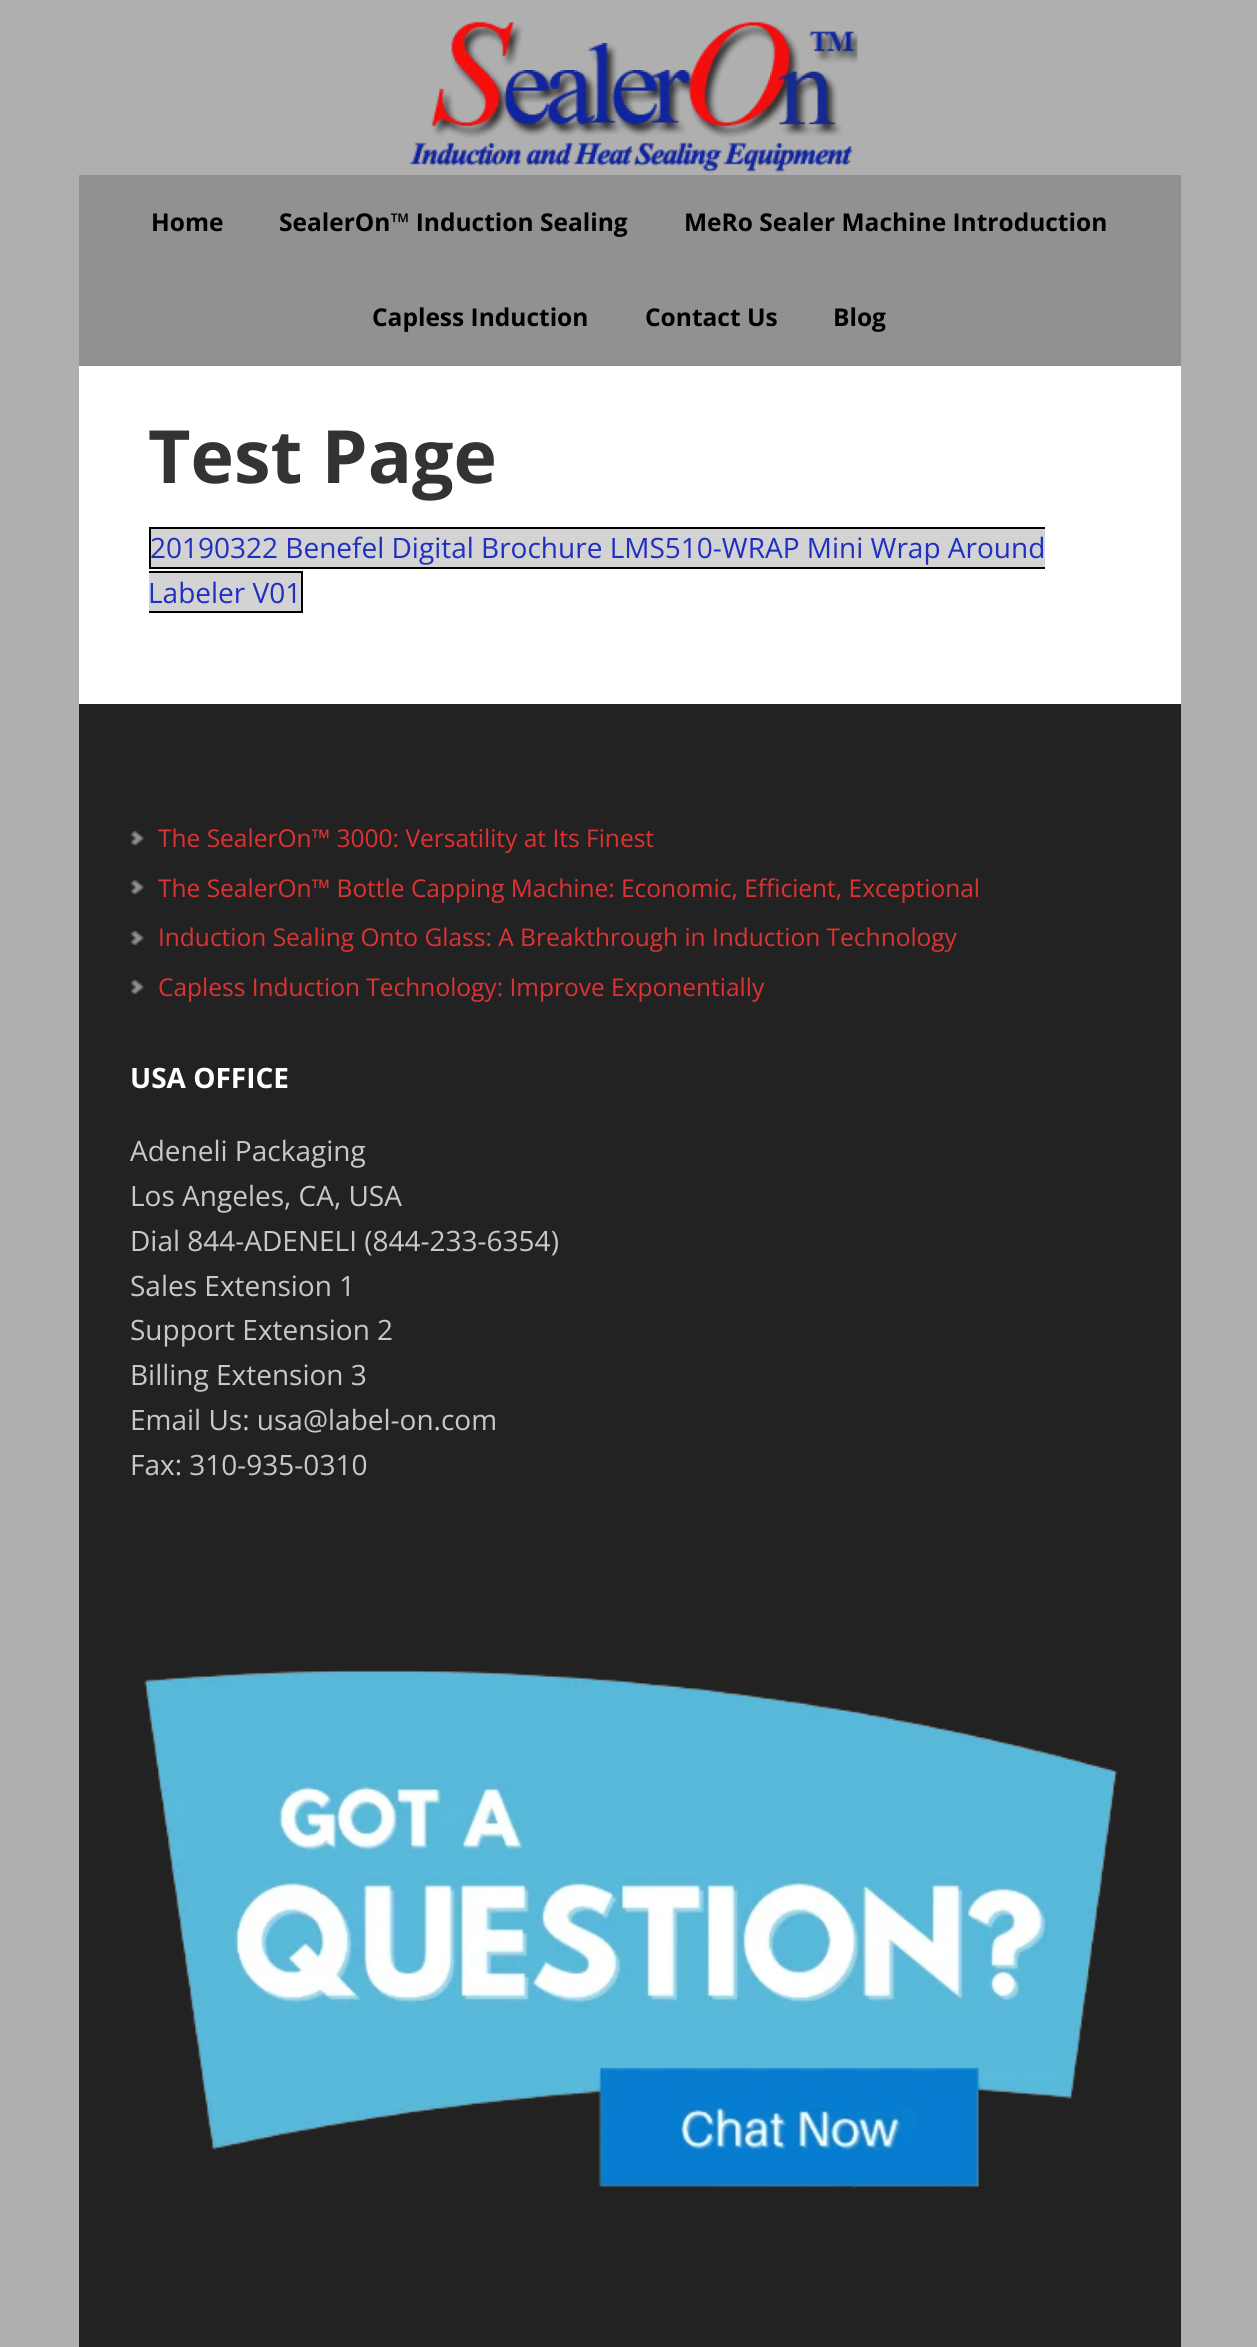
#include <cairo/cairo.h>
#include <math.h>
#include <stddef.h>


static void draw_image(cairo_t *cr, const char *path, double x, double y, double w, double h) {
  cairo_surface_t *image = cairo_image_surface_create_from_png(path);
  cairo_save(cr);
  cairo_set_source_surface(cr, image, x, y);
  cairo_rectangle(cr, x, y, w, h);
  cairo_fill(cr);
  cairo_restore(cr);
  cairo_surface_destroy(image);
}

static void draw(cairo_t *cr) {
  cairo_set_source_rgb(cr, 175 / 255.0, 175 / 255.0, 175 / 255.0);
  cairo_paint(cr);
  draw_image(cr, "images/1.png", 409, 21, 449, 152);
  cairo_set_source_rgb(cr, 145 / 255.0, 145 / 255.0, 145 / 255.0);
  cairo_rectangle(cr, 79, 175, 1102, 191);
  cairo_fill(cr);
  cairo_set_source_rgb(cr, 1, 1, 1);
  cairo_rectangle(cr, 79, 366, 1102, 338);
  cairo_fill(cr);
  cairo_set_source_rgb(cr, 211 / 255.0, 211 / 255.0, 211 / 255.0);
  cairo_rectangle(cr, 151, 529, 894, 38);
  cairo_fill(cr);
  cairo_set_source_rgb(cr, 0, 0, 0);
  cairo_rectangle(cr, 149, 527, 896, 2);
  cairo_fill(cr);
  cairo_rectangle(cr, 149, 567, 896, 2);
  cairo_fill(cr);
  cairo_rectangle(cr, 149, 527, 2, 42);
  cairo_fill(cr);
  cairo_set_source_rgb(cr, 211 / 255.0, 211 / 255.0, 211 / 255.0);
  cairo_rectangle(cr, 149, 573, 152, 38);
  cairo_fill(cr);
  cairo_set_source_rgb(cr, 0, 0, 0);
  cairo_rectangle(cr, 149, 571, 154, 2);
  cairo_fill(cr);
  cairo_rectangle(cr, 301, 571, 2, 42);
  cairo_fill(cr);
  cairo_rectangle(cr, 149, 611, 154, 2);
  cairo_fill(cr);
  cairo_set_source_rgb(cr, 34 / 255.0, 34 / 255.0, 34 / 255.0);
  cairo_rectangle(cr, 79, 704, 1102, 1643);
  cairo_fill(cr);
  draw_image(cr, "images/2.png", 131, 831, 13, 15);
  draw_image(cr, "images/2.png", 131, 880, 13, 15);
  draw_image(cr, "images/3.png", 131, 931, 13, 14);
  draw_image(cr, "images/3.png", 131, 980, 13, 14);
  draw_image(cr, "images/4.png", 144, 1670, 974, 519);
  cairo_select_font_face(cr, "Open Sans", CAIRO_FONT_SLANT_NORMAL, CAIRO_FONT_WEIGHT_BOLD);
  cairo_set_font_size(cr, 24.5);
  cairo_set_source_rgb(cr, 0, 0, 0);
  cairo_move_to(cr, 151, 231);
  cairo_show_text(cr, "Home");
  cairo_move_to(cr, 279, 231);
  cairo_show_text(cr, "SealerOn™ Induction Sealing");
  cairo_move_to(cr, 684, 231);
  cairo_show_text(cr, "MeRo Sealer Machine Introduction");
  cairo_move_to(cr, 372, 326);
  cairo_show_text(cr, "Capless Induction");
  cairo_move_to(cr, 645, 326);
  cairo_show_text(cr, "Contact Us");
  cairo_move_to(cr, 833, 326);
  cairo_show_text(cr, "Blog");
  cairo_set_font_size(cr, 73.5);
  cairo_set_source_rgb(cr, 51 / 255.0, 51 / 255.0, 51 / 255.0);
  cairo_move_to(cr, 148, 483);
  cairo_show_text(cr, "Test Page");
  cairo_select_font_face(cr, "Open Sans", CAIRO_FONT_SLANT_NORMAL, CAIRO_FONT_WEIGHT_NORMAL);
  cairo_set_font_size(cr, 28);
  cairo_set_source_rgb(cr, 31 / 255.0, 47 / 255.0, 193 / 255.0);
  cairo_move_to(cr, 150, 558);
  cairo_show_text(cr, "20190322 Benefel Digital Brochure LMS510-WRAP Mini Wrap Around");
  cairo_move_to(cr, 148, 603);
  cairo_show_text(cr, "Labeler V01");
  cairo_set_font_size(cr, 24.5);
  cairo_set_source_rgb(cr, 221 / 255.0, 51 / 255.0, 51 / 255.0);
  cairo_move_to(cr, 158, 847);
  cairo_show_text(cr, "The SealerOn™ 3000: Versatility at Its Finest");
  cairo_move_to(cr, 158, 897);
  cairo_show_text(cr, "The SealerOn™ Bottle Capping Machine: Economic, Efficient, Exceptional");
  cairo_move_to(cr, 158, 946);
  cairo_show_text(cr, "Induction Sealing Onto Glass: A Breakthrough in Induction Technology");
  cairo_move_to(cr, 158, 996);
  cairo_show_text(cr, "Capless Induction Technology: Improve Exponentially");
  cairo_select_font_face(cr, "Open Sans", CAIRO_FONT_SLANT_NORMAL, CAIRO_FONT_WEIGHT_BOLD);
  cairo_set_font_size(cr, 28);
  cairo_set_source_rgb(cr, 1, 1, 1);
  cairo_move_to(cr, 130, 1088);
  cairo_show_text(cr, "USA OFFICE");
  cairo_select_font_face(cr, "Open Sans", CAIRO_FONT_SLANT_NORMAL, CAIRO_FONT_WEIGHT_NORMAL);
  cairo_set_source_rgb(cr, 200 / 255.0, 200 / 255.0, 200 / 255.0);
  cairo_move_to(cr, 130, 1161);
  cairo_show_text(cr, "Adeneli Packaging");
  cairo_move_to(cr, 130, 1206);
  cairo_show_text(cr, "Los Angeles, CA, USA");
  cairo_move_to(cr, 130, 1251);
  cairo_show_text(cr, "Dial 844-ADENELI (844-233-6354)");
  cairo_move_to(cr, 130, 1296);
  cairo_show_text(cr, "Sales Extension 1");
  cairo_move_to(cr, 130, 1340);
  cairo_show_text(cr, "Support Extension 2");
  cairo_move_to(cr, 130, 1385);
  cairo_show_text(cr, "Billing Extension 3");
  cairo_move_to(cr, 130, 1430);
  cairo_show_text(cr, "Email Us: usa@label-on.com");
  cairo_move_to(cr, 130, 1475);
  cairo_show_text(cr, "Fax: 310-935-0310");
}

int main(void) {
  cairo_surface_t *surface = cairo_image_surface_create(CAIRO_FORMAT_RGB24, 1257, 2347);
  cairo_t *cr = cairo_create(surface);
  cairo_font_options_t *options = cairo_font_options_create();
  cairo_font_options_set_hint_metrics(options, CAIRO_HINT_METRICS_OFF);
  cairo_font_options_set_hint_style(options, CAIRO_HINT_STYLE_NONE);
  cairo_set_font_options(cr, options);
  cairo_set_miter_limit(cr, 4);
  draw(cr);
  cairo_surface_write_to_png(surface, "out.png");
  cairo_font_options_destroy(options);
  cairo_destroy(cr);
  cairo_surface_destroy(surface);
  return 0;
}
